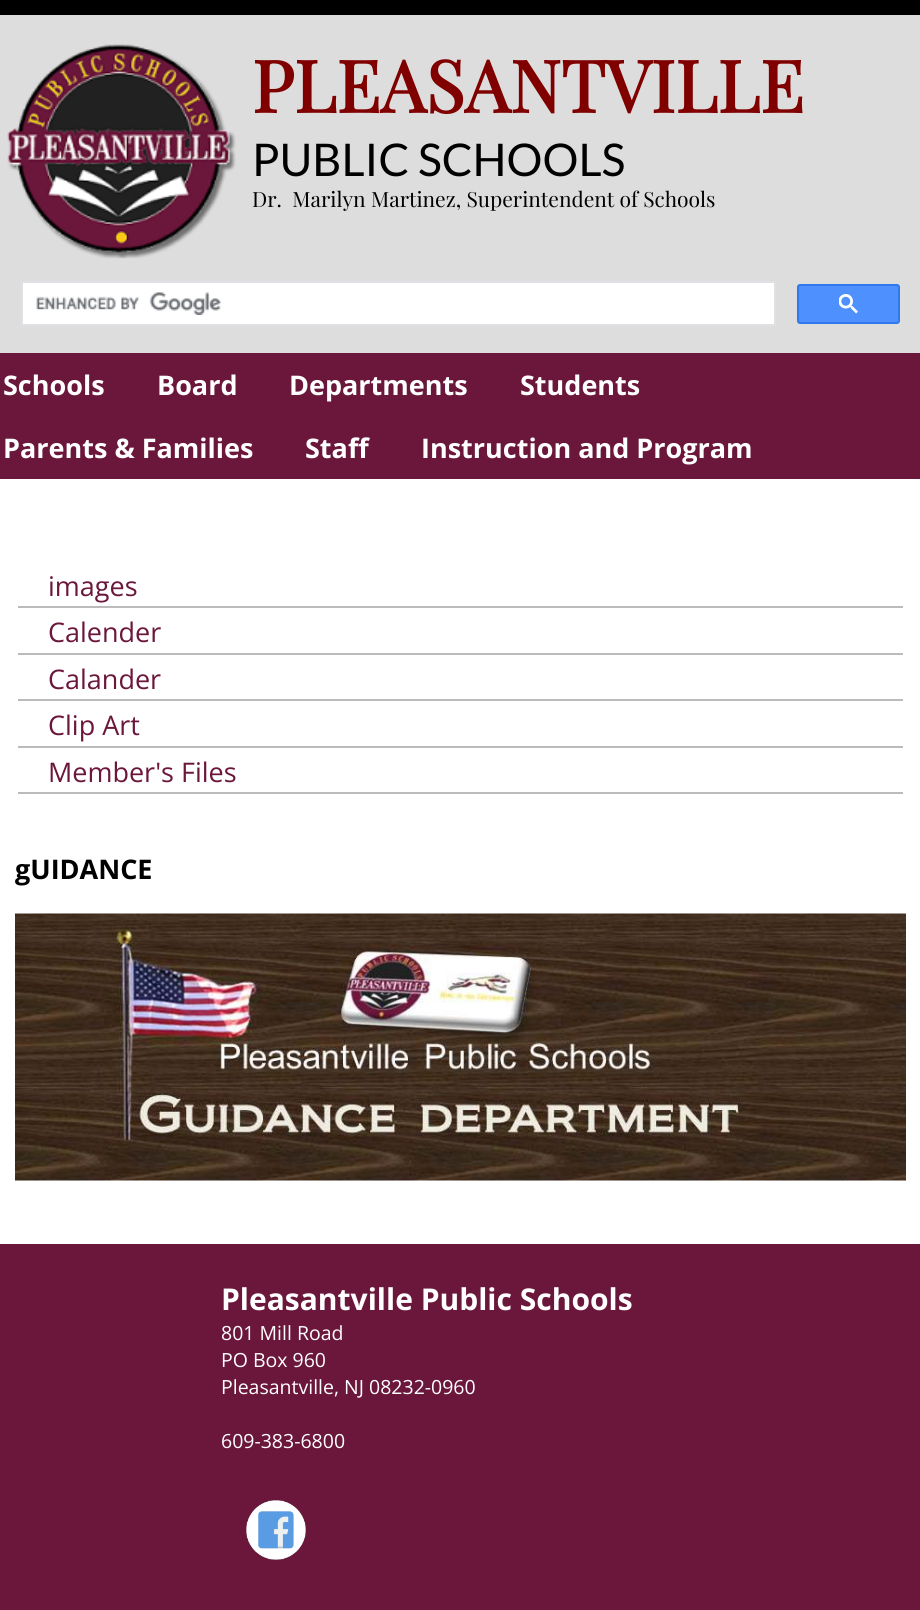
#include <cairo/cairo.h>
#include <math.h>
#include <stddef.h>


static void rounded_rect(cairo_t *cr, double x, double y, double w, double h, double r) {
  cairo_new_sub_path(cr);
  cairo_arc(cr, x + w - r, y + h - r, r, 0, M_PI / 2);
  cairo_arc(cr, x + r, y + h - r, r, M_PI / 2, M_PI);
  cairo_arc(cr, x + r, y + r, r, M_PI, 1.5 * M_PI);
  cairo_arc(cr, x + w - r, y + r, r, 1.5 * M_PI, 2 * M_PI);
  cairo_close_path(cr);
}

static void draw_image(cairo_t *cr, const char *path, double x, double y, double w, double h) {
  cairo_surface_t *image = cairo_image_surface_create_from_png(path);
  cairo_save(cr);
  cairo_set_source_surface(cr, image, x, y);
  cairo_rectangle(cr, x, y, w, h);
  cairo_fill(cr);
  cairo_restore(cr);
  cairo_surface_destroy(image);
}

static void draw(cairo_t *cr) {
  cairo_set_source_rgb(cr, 1, 1, 1);
  cairo_paint(cr);
  cairo_set_source_rgb(cr, 0, 0, 0);
  cairo_rectangle(cr, 0, 0, 920, 15);
  cairo_fill(cr);
  cairo_set_source_rgb(cr, 221 / 255.0, 221 / 255.0, 221 / 255.0);
  cairo_rectangle(cr, 0, 15, 920, 338);
  cairo_fill(cr);
  draw_image(cr, "images/1.png", 7, 44, 229, 215);
  cairo_set_source_rgb(cr, 1, 1, 1);
  cairo_rectangle(cr, 22, 282, 753, 43);
  cairo_fill_preserve(cr);
  cairo_set_source_rgb(cr, 223 / 255.0, 225 / 255.0, 229 / 255.0);
  cairo_stroke(cr);
  draw_image(cr, "images/2.png", 36, 292, 185, 23);
  cairo_set_source_rgb(cr, 77 / 255.0, 144 / 255.0, 254 / 255.0);
  rounded_rect(cr, 798, 285, 101, 38, 2);
  cairo_fill_preserve(cr);
  cairo_set_source_rgb(cr, 48 / 255.0, 121 / 255.0, 237 / 255.0);
  cairo_stroke(cr);
  draw_image(cr, "images/3.png", 839, 294, 19, 20);
  cairo_set_source_rgb(cr, 107 / 255.0, 23 / 255.0, 59 / 255.0);
  cairo_rectangle(cr, 0, 353, 920, 126);
  cairo_fill(cr);
  cairo_set_source_rgb(cr, 187 / 255.0, 187 / 255.0, 187 / 255.0);
  cairo_rectangle(cr, 18, 606, 885, 2);
  cairo_fill(cr);
  cairo_rectangle(cr, 18, 653, 885, 2);
  cairo_fill(cr);
  cairo_rectangle(cr, 18, 699, 885, 2);
  cairo_fill(cr);
  cairo_rectangle(cr, 18, 746, 885, 2);
  cairo_fill(cr);
  cairo_rectangle(cr, 18, 792, 885, 2);
  cairo_fill(cr);
  draw_image(cr, "images/4.png", 15, 913, 891, 268);
  cairo_set_source_rgb(cr, 107 / 255.0, 23 / 255.0, 59 / 255.0);
  cairo_rectangle(cr, 0, 1244, 920, 366);
  cairo_fill(cr);
  draw_image(cr, "images/5.png", 246, 1500, 60, 60);
  cairo_select_font_face(cr, "Playfair Display", CAIRO_FONT_SLANT_NORMAL, CAIRO_FONT_WEIGHT_BOLD);
  cairo_set_font_size(cr, 72);
  cairo_set_source_rgb(cr, 128 / 255.0, 0, 0);
  cairo_move_to(cr, 252, 113);
  cairo_show_text(cr, "PLEASANTVILLE");
  cairo_select_font_face(cr, "Lato", CAIRO_FONT_SLANT_NORMAL, CAIRO_FONT_WEIGHT_NORMAL);
  cairo_set_font_size(cr, 45);
  cairo_set_source_rgb(cr, 0, 0, 0);
  cairo_move_to(cr, 252, 176);
  cairo_show_text(cr, "PUBLIC SCHOOLS");
  cairo_select_font_face(cr, "Playfair Display", CAIRO_FONT_SLANT_NORMAL, CAIRO_FONT_WEIGHT_NORMAL);
  cairo_set_font_size(cr, 21);
  cairo_move_to(cr, 252, 207);
  cairo_show_text(cr, "Dr.  Marilyn Martinez, Superintendent of Schools");
  cairo_select_font_face(cr, "Open Sans", CAIRO_FONT_SLANT_NORMAL, CAIRO_FONT_WEIGHT_BOLD);
  cairo_set_font_size(cr, 27);
  cairo_set_source_rgb(cr, 1, 1, 1);
  cairo_move_to(cr, 3, 395);
  cairo_show_text(cr, "Schools");
  cairo_move_to(cr, 157, 395);
  cairo_show_text(cr, "Board");
  cairo_move_to(cr, 289, 395);
  cairo_show_text(cr, "Departments");
  cairo_move_to(cr, 520, 395);
  cairo_show_text(cr, "Students");
  cairo_move_to(cr, 3, 458);
  cairo_show_text(cr, "Parents & Families");
  cairo_move_to(cr, 305, 458);
  cairo_show_text(cr, "Staff");
  cairo_move_to(cr, 421, 458);
  cairo_show_text(cr, "Instruction and Program");
  cairo_select_font_face(cr, "Open Sans", CAIRO_FONT_SLANT_NORMAL, CAIRO_FONT_WEIGHT_NORMAL);
  cairo_set_source_rgb(cr, 107 / 255.0, 23 / 255.0, 59 / 255.0);
  cairo_move_to(cr, 48, 596);
  cairo_show_text(cr, "images");
  cairo_move_to(cr, 48, 642);
  cairo_show_text(cr, "Calender");
  cairo_move_to(cr, 48, 689);
  cairo_show_text(cr, "Calander");
  cairo_move_to(cr, 48, 735);
  cairo_show_text(cr, "Clip Art");
  cairo_move_to(cr, 48, 782);
  cairo_show_text(cr, "Member's Files");
  cairo_select_font_face(cr, "Open Sans", CAIRO_FONT_SLANT_NORMAL, CAIRO_FONT_WEIGHT_BOLD);
  cairo_set_source_rgb(cr, 0, 0, 0);
  cairo_move_to(cr, 15, 879);
  cairo_show_text(cr, "gUIDANCE");
  cairo_set_font_size(cr, 30);
  cairo_set_source_rgb(cr, 1, 1, 1);
  cairo_move_to(cr, 221, 1310);
  cairo_show_text(cr, "Pleasantville Public Schools");
  cairo_select_font_face(cr, "Open Sans", CAIRO_FONT_SLANT_NORMAL, CAIRO_FONT_WEIGHT_NORMAL);
  cairo_set_font_size(cr, 19.5);
  cairo_move_to(cr, 221, 1340);
  cairo_show_text(cr, "801 Mill Road");
  cairo_move_to(cr, 221, 1367);
  cairo_show_text(cr, "PO Box 960");
  cairo_move_to(cr, 221, 1394);
  cairo_show_text(cr, "Pleasantville, NJ 08232-0960");
  cairo_move_to(cr, 221, 1448);
  cairo_show_text(cr, "609-383-6800");
}

int main(void) {
  cairo_surface_t *surface = cairo_image_surface_create(CAIRO_FORMAT_RGB24, 920, 1610);
  cairo_t *cr = cairo_create(surface);
  cairo_font_options_t *options = cairo_font_options_create();
  cairo_font_options_set_hint_metrics(options, CAIRO_HINT_METRICS_OFF);
  cairo_font_options_set_hint_style(options, CAIRO_HINT_STYLE_NONE);
  cairo_set_font_options(cr, options);
  cairo_set_miter_limit(cr, 4);
  draw(cr);
  cairo_surface_write_to_png(surface, "out.png");
  cairo_font_options_destroy(options);
  cairo_destroy(cr);
  cairo_surface_destroy(surface);
  return 0;
}
